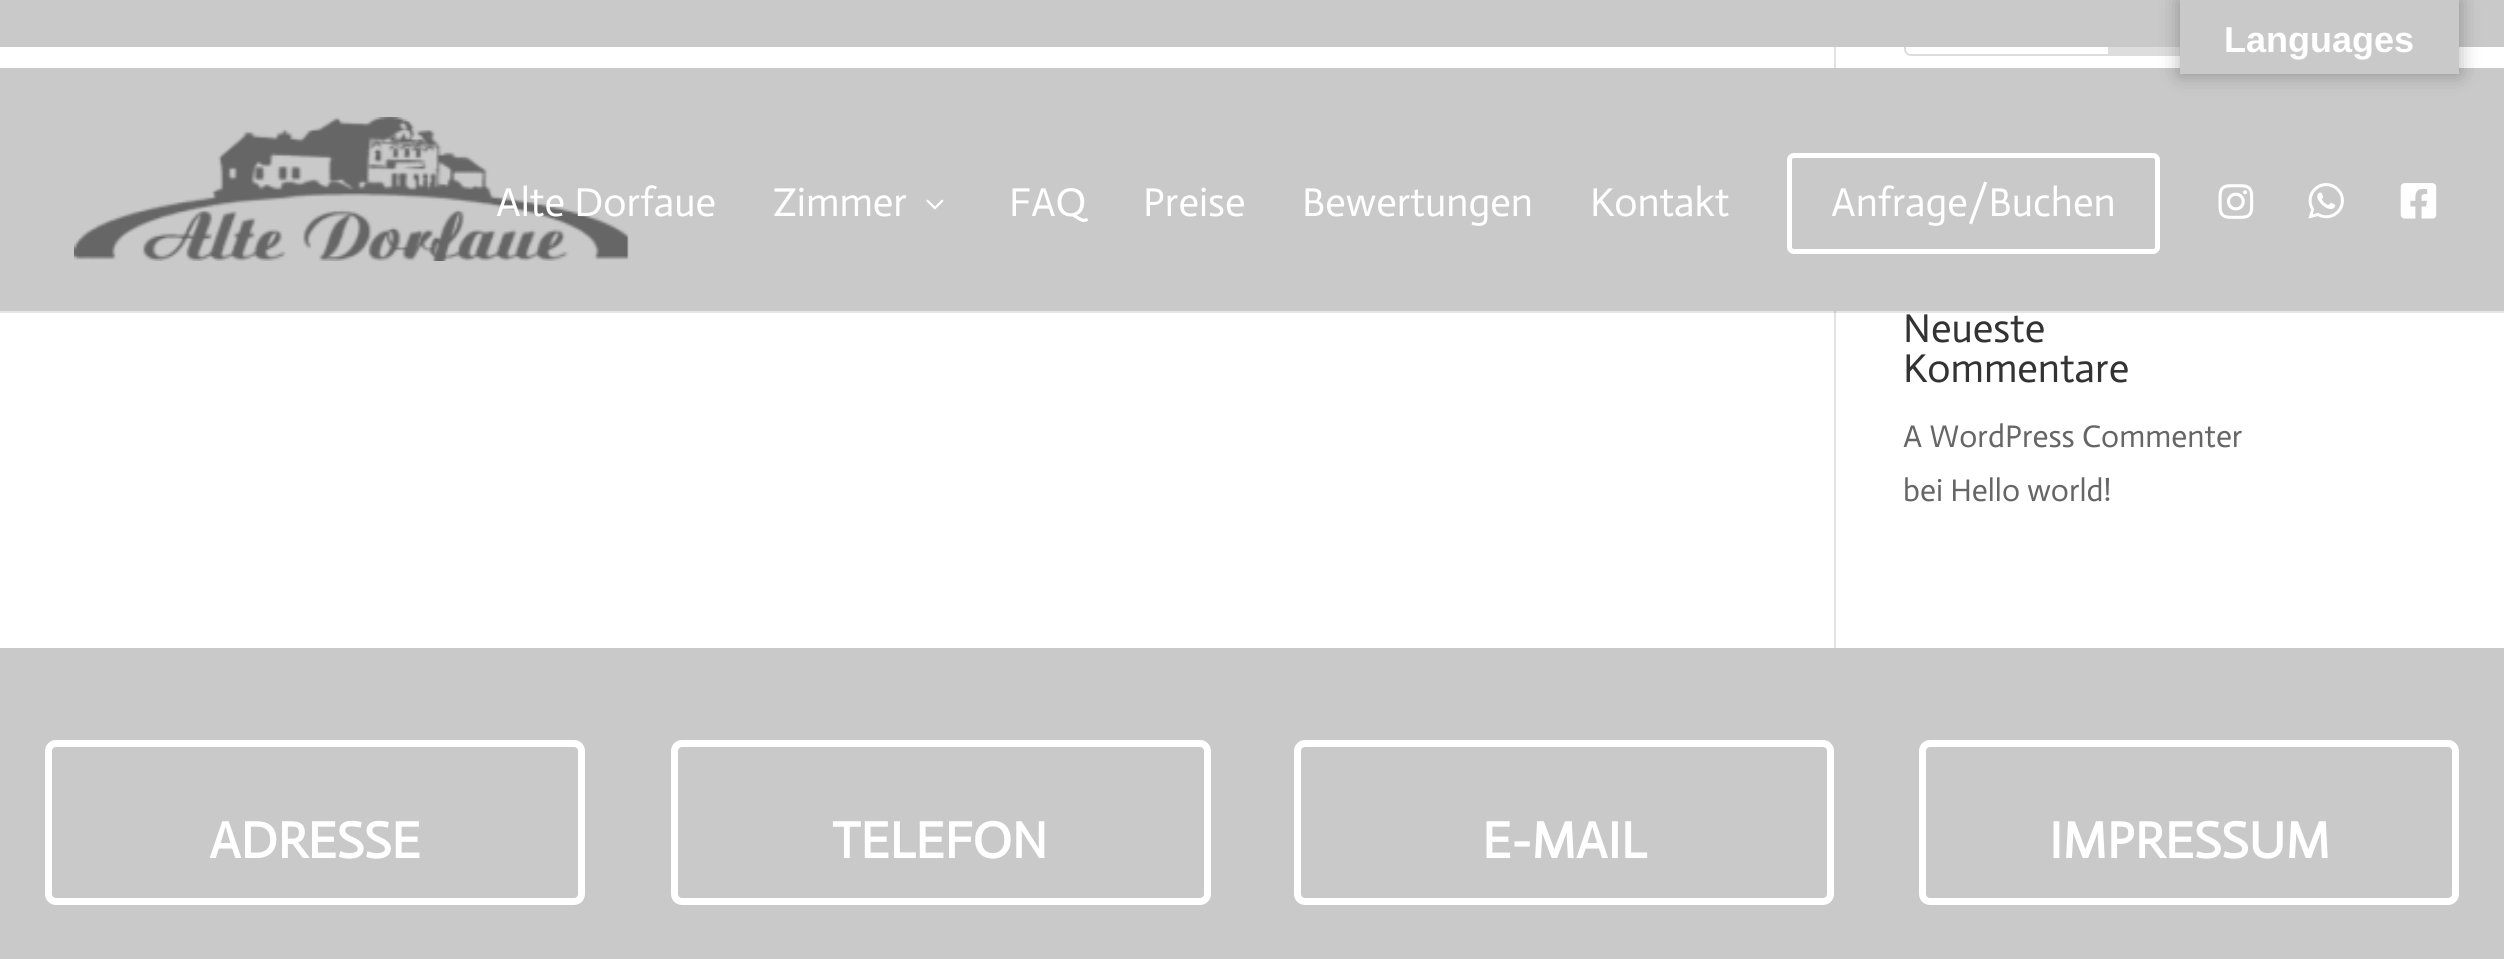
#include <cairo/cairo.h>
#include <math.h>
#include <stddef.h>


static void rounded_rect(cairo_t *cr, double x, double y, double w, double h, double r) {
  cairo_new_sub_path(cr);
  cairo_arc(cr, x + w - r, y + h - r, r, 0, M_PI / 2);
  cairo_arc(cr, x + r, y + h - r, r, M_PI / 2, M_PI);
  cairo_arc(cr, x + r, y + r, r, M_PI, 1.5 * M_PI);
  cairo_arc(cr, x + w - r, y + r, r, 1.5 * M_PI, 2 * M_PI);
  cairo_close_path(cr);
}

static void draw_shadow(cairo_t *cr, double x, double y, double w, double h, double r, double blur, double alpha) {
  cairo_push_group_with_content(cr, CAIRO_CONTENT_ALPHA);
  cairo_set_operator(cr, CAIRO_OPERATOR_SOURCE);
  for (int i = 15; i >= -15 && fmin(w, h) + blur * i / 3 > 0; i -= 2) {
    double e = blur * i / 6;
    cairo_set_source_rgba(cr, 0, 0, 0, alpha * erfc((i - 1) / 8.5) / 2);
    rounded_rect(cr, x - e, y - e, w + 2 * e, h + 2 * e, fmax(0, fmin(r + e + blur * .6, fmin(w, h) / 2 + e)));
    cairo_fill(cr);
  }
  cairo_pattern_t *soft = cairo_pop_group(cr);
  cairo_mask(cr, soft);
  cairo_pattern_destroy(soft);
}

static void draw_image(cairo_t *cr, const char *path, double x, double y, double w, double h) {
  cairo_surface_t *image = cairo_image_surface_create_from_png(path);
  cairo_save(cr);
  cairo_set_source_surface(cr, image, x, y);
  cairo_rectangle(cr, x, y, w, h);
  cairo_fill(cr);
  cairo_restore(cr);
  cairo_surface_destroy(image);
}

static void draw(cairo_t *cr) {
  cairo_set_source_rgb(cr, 1, 1, 1);
  cairo_paint(cr);
  cairo_set_source_rgb(cr, 230 / 255.0, 230 / 255.0, 230 / 255.0);
  cairo_rectangle(cr, 0, 311, 2504, 2);
  cairo_fill(cr);
  rounded_rect(cr, 1905, -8, 349, 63, 6);
  cairo_set_source_rgb(cr, 221 / 255.0, 221 / 255.0, 221 / 255.0);
  cairo_stroke(cr);
  cairo_rectangle(cr, 2110, 47, 70, 7);
  cairo_fill(cr);
  cairo_rectangle(cr, 2109, -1, 145, 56);
  cairo_stroke(cr);
  cairo_set_source_rgb(cr, 201 / 255.0, 201 / 255.0, 201 / 255.0);
  cairo_rectangle(cr, 0, 0, 2504, 47);
  cairo_fill(cr);
  cairo_set_source_rgb(cr, 226 / 255.0, 226 / 255.0, 226 / 255.0);
  cairo_rectangle(cr, 1834, 47, 2, 601);
  cairo_fill(cr);
  cairo_set_source_rgb(cr, 203 / 255.0, 203 / 255.0, 203 / 255.0);
  cairo_rectangle(cr, 1834, 310, 2, 3);
  cairo_fill(cr);
  cairo_set_source_rgb(cr, 201 / 255.0, 201 / 255.0, 201 / 255.0);
  cairo_rectangle(cr, 0, 68, 2504, 243);
  cairo_fill(cr);
  cairo_set_source_rgb(cr, 0, 0, 0);
  draw_shadow(cr, 2180, 0, 279, 74, 0, 10, 0.3);
  cairo_set_source_rgb(cr, 201 / 255.0, 201 / 255.0, 201 / 255.0);
  cairo_rectangle(cr, 2180, 0, 279, 74);
  cairo_fill(cr);
  draw_image(cr, "images/1.png", 74, 117, 555, 144);
  draw_image(cr, "images/2.png", 926, 199, 18, 11);
  rounded_rect(cr, 1789.5, 155.5, 368, 96, 4.5);
  cairo_set_source_rgb(cr, 1, 1, 1);
  cairo_set_line_width(cr, 5);
  cairo_stroke(cr);
  draw_image(cr, "images/3.png", 2218, 184, 36, 35);
  draw_image(cr, "images/4.png", 2308, 183, 36, 36);
  draw_image(cr, "images/5.png", 2400, 183, 37, 36);
  cairo_set_source_rgb(cr, 201 / 255.0, 201 / 255.0, 201 / 255.0);
  cairo_rectangle(cr, 0, 648, 2504, 311);
  cairo_fill(cr);
  rounded_rect(cr, 48.5, 743.5, 533, 158, 7.5);
  cairo_set_source_rgb(cr, 1, 1, 1);
  cairo_set_line_width(cr, 7);
  cairo_stroke(cr);
  rounded_rect(cr, 674.5, 743.5, 533, 158, 7.5);
  cairo_stroke(cr);
  rounded_rect(cr, 1297.5, 743.5, 533, 158, 7.5);
  cairo_stroke(cr);
  rounded_rect(cr, 1922.5, 743.5, 533, 158, 7.5);
  cairo_stroke(cr);
  cairo_select_font_face(cr, "Liberation Sans", CAIRO_FONT_SLANT_NORMAL, CAIRO_FONT_WEIGHT_BOLD);
  cairo_set_font_size(cr, 36);
  cairo_move_to(cr, 2224, 52);
  cairo_show_text(cr, "Languages");
  cairo_select_font_face(cr, "Actor", CAIRO_FONT_SLANT_NORMAL, CAIRO_FONT_WEIGHT_NORMAL);
  cairo_set_font_size(cr, 40.5);
  cairo_move_to(cr, 496, 216);
  cairo_show_text(cr, "Alte Dorfaue");
  cairo_move_to(cr, 773, 216);
  cairo_show_text(cr, "Zimmer");
  cairo_move_to(cr, 1009, 216);
  cairo_show_text(cr, "FAQ");
  cairo_move_to(cr, 1143, 216);
  cairo_show_text(cr, "Preise");
  cairo_move_to(cr, 1302, 216);
  cairo_show_text(cr, "Bewertungen");
  cairo_move_to(cr, 1590, 216);
  cairo_show_text(cr, "Kontakt");
  cairo_move_to(cr, 1831, 216);
  cairo_show_text(cr, "Anfrage/Buchen");
  cairo_set_source_rgb(cr, 51 / 255.0, 51 / 255.0, 51 / 255.0);
  cairo_move_to(cr, 1903, 342);
  cairo_show_text(cr, "Neueste");
  cairo_move_to(cr, 1903, 382);
  cairo_show_text(cr, "Kommentare");
  cairo_set_font_size(cr, 31.5);
  cairo_set_source_rgb(cr, 102 / 255.0, 102 / 255.0, 102 / 255.0);
  cairo_move_to(cr, 1903, 447);
  cairo_show_text(cr, "A WordPress Commenter");
  cairo_move_to(cr, 1903, 501);
  cairo_show_text(cr, "bei Hello world!");
  cairo_select_font_face(cr, "Actor", CAIRO_FONT_SLANT_NORMAL, CAIRO_FONT_WEIGHT_BOLD);
  cairo_set_font_size(cr, 51.75);
  cairo_set_source_rgb(cr, 1, 1, 1);
  cairo_move_to(cr, 209, 858);
  cairo_show_text(cr, "ADRESSE");
  cairo_move_to(cr, 832, 858);
  cairo_show_text(cr, "TELEFON");
  cairo_move_to(cr, 1482, 858);
  cairo_show_text(cr, "E-MAIL");
  cairo_move_to(cr, 2049, 858);
  cairo_show_text(cr, "IMPRESSUM");
}

int main(void) {
  cairo_surface_t *surface = cairo_image_surface_create(CAIRO_FORMAT_RGB24, 2504, 959);
  cairo_t *cr = cairo_create(surface);
  cairo_font_options_t *options = cairo_font_options_create();
  cairo_font_options_set_hint_metrics(options, CAIRO_HINT_METRICS_OFF);
  cairo_font_options_set_hint_style(options, CAIRO_HINT_STYLE_NONE);
  cairo_set_font_options(cr, options);
  cairo_set_miter_limit(cr, 4);
  draw(cr);
  cairo_surface_write_to_png(surface, "out.png");
  cairo_font_options_destroy(options);
  cairo_destroy(cr);
  cairo_surface_destroy(surface);
  return 0;
}
